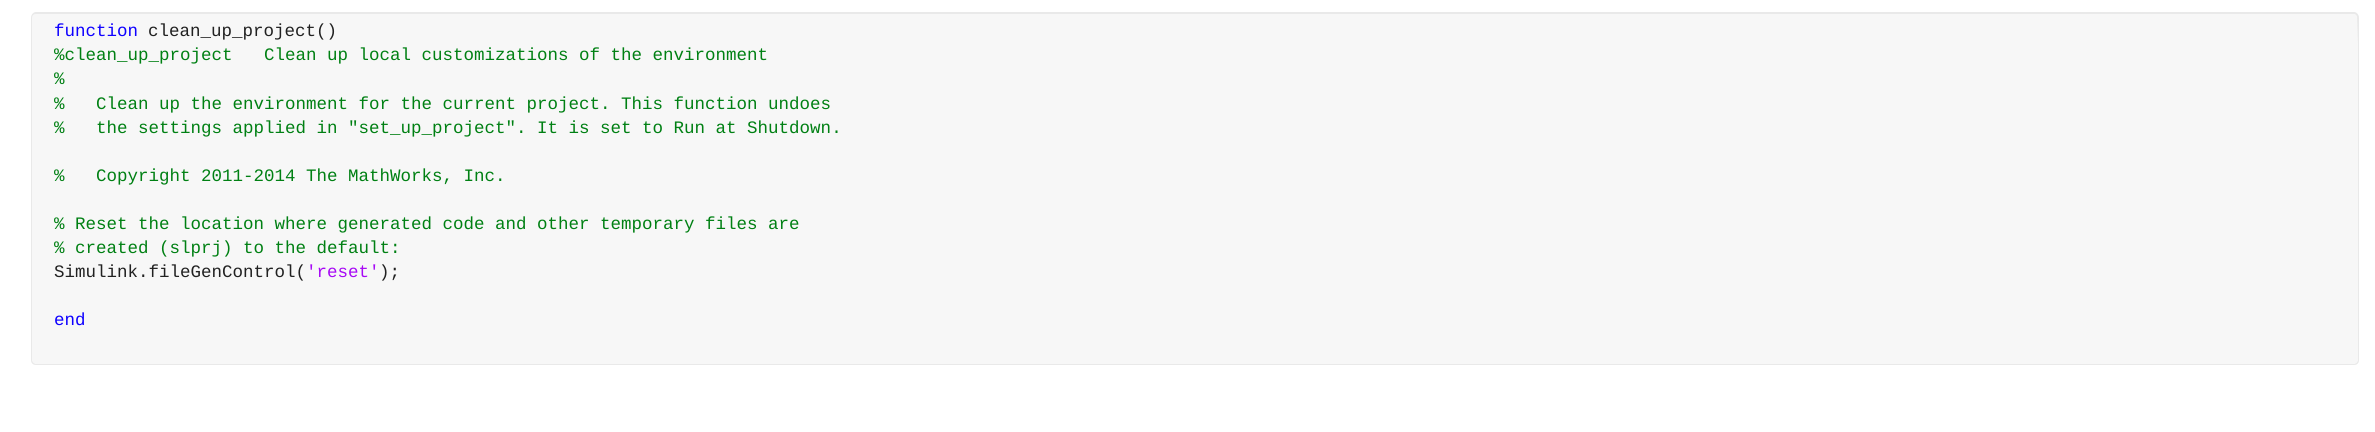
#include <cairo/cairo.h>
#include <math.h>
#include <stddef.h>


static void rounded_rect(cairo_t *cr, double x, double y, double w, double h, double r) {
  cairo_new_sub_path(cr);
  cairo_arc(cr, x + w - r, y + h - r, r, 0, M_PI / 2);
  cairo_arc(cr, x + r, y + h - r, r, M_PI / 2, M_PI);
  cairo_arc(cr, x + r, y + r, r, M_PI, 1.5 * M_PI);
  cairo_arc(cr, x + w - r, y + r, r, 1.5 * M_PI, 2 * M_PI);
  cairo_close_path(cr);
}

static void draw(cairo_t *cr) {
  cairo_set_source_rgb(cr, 1, 1, 1);
  cairo_paint(cr);
  cairo_set_source_rgb(cr, 247 / 255.0, 247 / 255.0, 247 / 255.0);
  rounded_rect(cr, 31, 13, 2328, 352, 5);
  cairo_fill(cr);
  cairo_set_source_rgb(cr, 233 / 255.0, 233 / 255.0, 233 / 255.0);
  cairo_set_fill_rule(cr, CAIRO_FILL_RULE_EVEN_ODD);
  cairo_new_path(cr);
  cairo_move_to(cr, 36, 12);
  cairo_line_to(cr, 2354, 12);
  cairo_curve_to(cr, 2357, 12, 2359, 15, 2359, 18);
  cairo_line_to(cr, 2359, 44);
  cairo_line_to(cr, 31, 44);
  cairo_line_to(cr, 31, 18);
  cairo_curve_to(cr, 31, 15, 33, 12, 36, 12);
  cairo_close_path(cr);
  cairo_move_to(cr, 36, 14);
  cairo_line_to(cr, 2355, 14);
  cairo_line_to(cr, 2357, 16);
  cairo_line_to(cr, 2358, 44);
  cairo_line_to(cr, 32, 44);
  cairo_line_to(cr, 32, 18);
  cairo_curve_to(cr, 32, 15, 34, 14, 36, 14);
  cairo_close_path(cr);
  cairo_fill(cr);
  cairo_rectangle(cr, 2358, 44, 1, 290);
  cairo_fill(cr);
  cairo_rectangle(cr, 31, 44, 1, 290);
  cairo_fill(cr);
  cairo_new_path(cr);
  cairo_move_to(cr, 31, 334);
  cairo_line_to(cr, 2359, 334);
  cairo_line_to(cr, 2359, 360);
  cairo_curve_to(cr, 2359, 363, 2357, 365, 2354, 365);
  cairo_line_to(cr, 36, 365);
  cairo_curve_to(cr, 33, 365, 31, 363, 31, 360);
  cairo_close_path(cr);
  cairo_move_to(cr, 32, 334);
  cairo_line_to(cr, 2358, 334);
  cairo_line_to(cr, 2358, 360);
  cairo_curve_to(cr, 2358, 362, 2356, 364, 2354, 364);
  cairo_line_to(cr, 36, 364);
  cairo_curve_to(cr, 34, 364, 32, 362, 32, 360);
  cairo_close_path(cr);
  cairo_fill(cr);
  cairo_select_font_face(cr, "Liberation Mono", CAIRO_FONT_SLANT_NORMAL, CAIRO_FONT_WEIGHT_NORMAL);
  cairo_set_font_size(cr, 17.5);
  cairo_set_source_rgb(cr, 14 / 255.0, 0, 1);
  cairo_move_to(cr, 54, 36);
  cairo_show_text(cr, "function");
  cairo_set_source_rgb(cr, 33 / 255.0, 33 / 255.0, 33 / 255.0);
  cairo_move_to(cr, 148, 36);
  cairo_show_text(cr, "clean_up_project()");
  cairo_set_source_rgb(cr, 0, 128 / 255.0, 19 / 255.0);
  cairo_move_to(cr, 54, 60);
  cairo_show_text(cr, "%clean_up_project   Clean up local customizations of the environment");
  cairo_move_to(cr, 54, 84);
  cairo_show_text(cr, "%");
  cairo_move_to(cr, 54, 109);
  cairo_show_text(cr, "%   Clean up the environment for the current project. This function undoes");
  cairo_move_to(cr, 54, 133);
  cairo_show_text(cr, "%   the settings applied in \"set_up_project\". It is set to Run at Shutdown.");
  cairo_move_to(cr, 54, 181);
  cairo_show_text(cr, "%   Copyright 2011-2014 The MathWorks, Inc.");
  cairo_move_to(cr, 54, 229);
  cairo_show_text(cr, "% Reset the location where generated code and other temporary files are");
  cairo_move_to(cr, 54, 253);
  cairo_show_text(cr, "% created (slprj) to the default:");
  cairo_set_source_rgb(cr, 33 / 255.0, 33 / 255.0, 33 / 255.0);
  cairo_move_to(cr, 54, 277);
  cairo_show_text(cr, "Simulink.fileGenControl(");
  cairo_set_source_rgb(cr, 167 / 255.0, 9 / 255.0, 245 / 255.0);
  cairo_move_to(cr, 306, 277);
  cairo_show_text(cr, "'reset'");
  cairo_set_source_rgb(cr, 33 / 255.0, 33 / 255.0, 33 / 255.0);
  cairo_move_to(cr, 379, 277);
  cairo_show_text(cr, ");");
  cairo_set_source_rgb(cr, 14 / 255.0, 0, 1);
  cairo_move_to(cr, 54, 325);
  cairo_show_text(cr, "end");
}

int main(void) {
  cairo_surface_t *surface = cairo_image_surface_create(CAIRO_FORMAT_RGB24, 2375, 432);
  cairo_t *cr = cairo_create(surface);
  cairo_font_options_t *options = cairo_font_options_create();
  cairo_font_options_set_hint_metrics(options, CAIRO_HINT_METRICS_OFF);
  cairo_font_options_set_hint_style(options, CAIRO_HINT_STYLE_NONE);
  cairo_set_font_options(cr, options);
  cairo_set_miter_limit(cr, 4);
  draw(cr);
  cairo_surface_write_to_png(surface, "out.png");
  cairo_font_options_destroy(options);
  cairo_destroy(cr);
  cairo_surface_destroy(surface);
  return 0;
}
